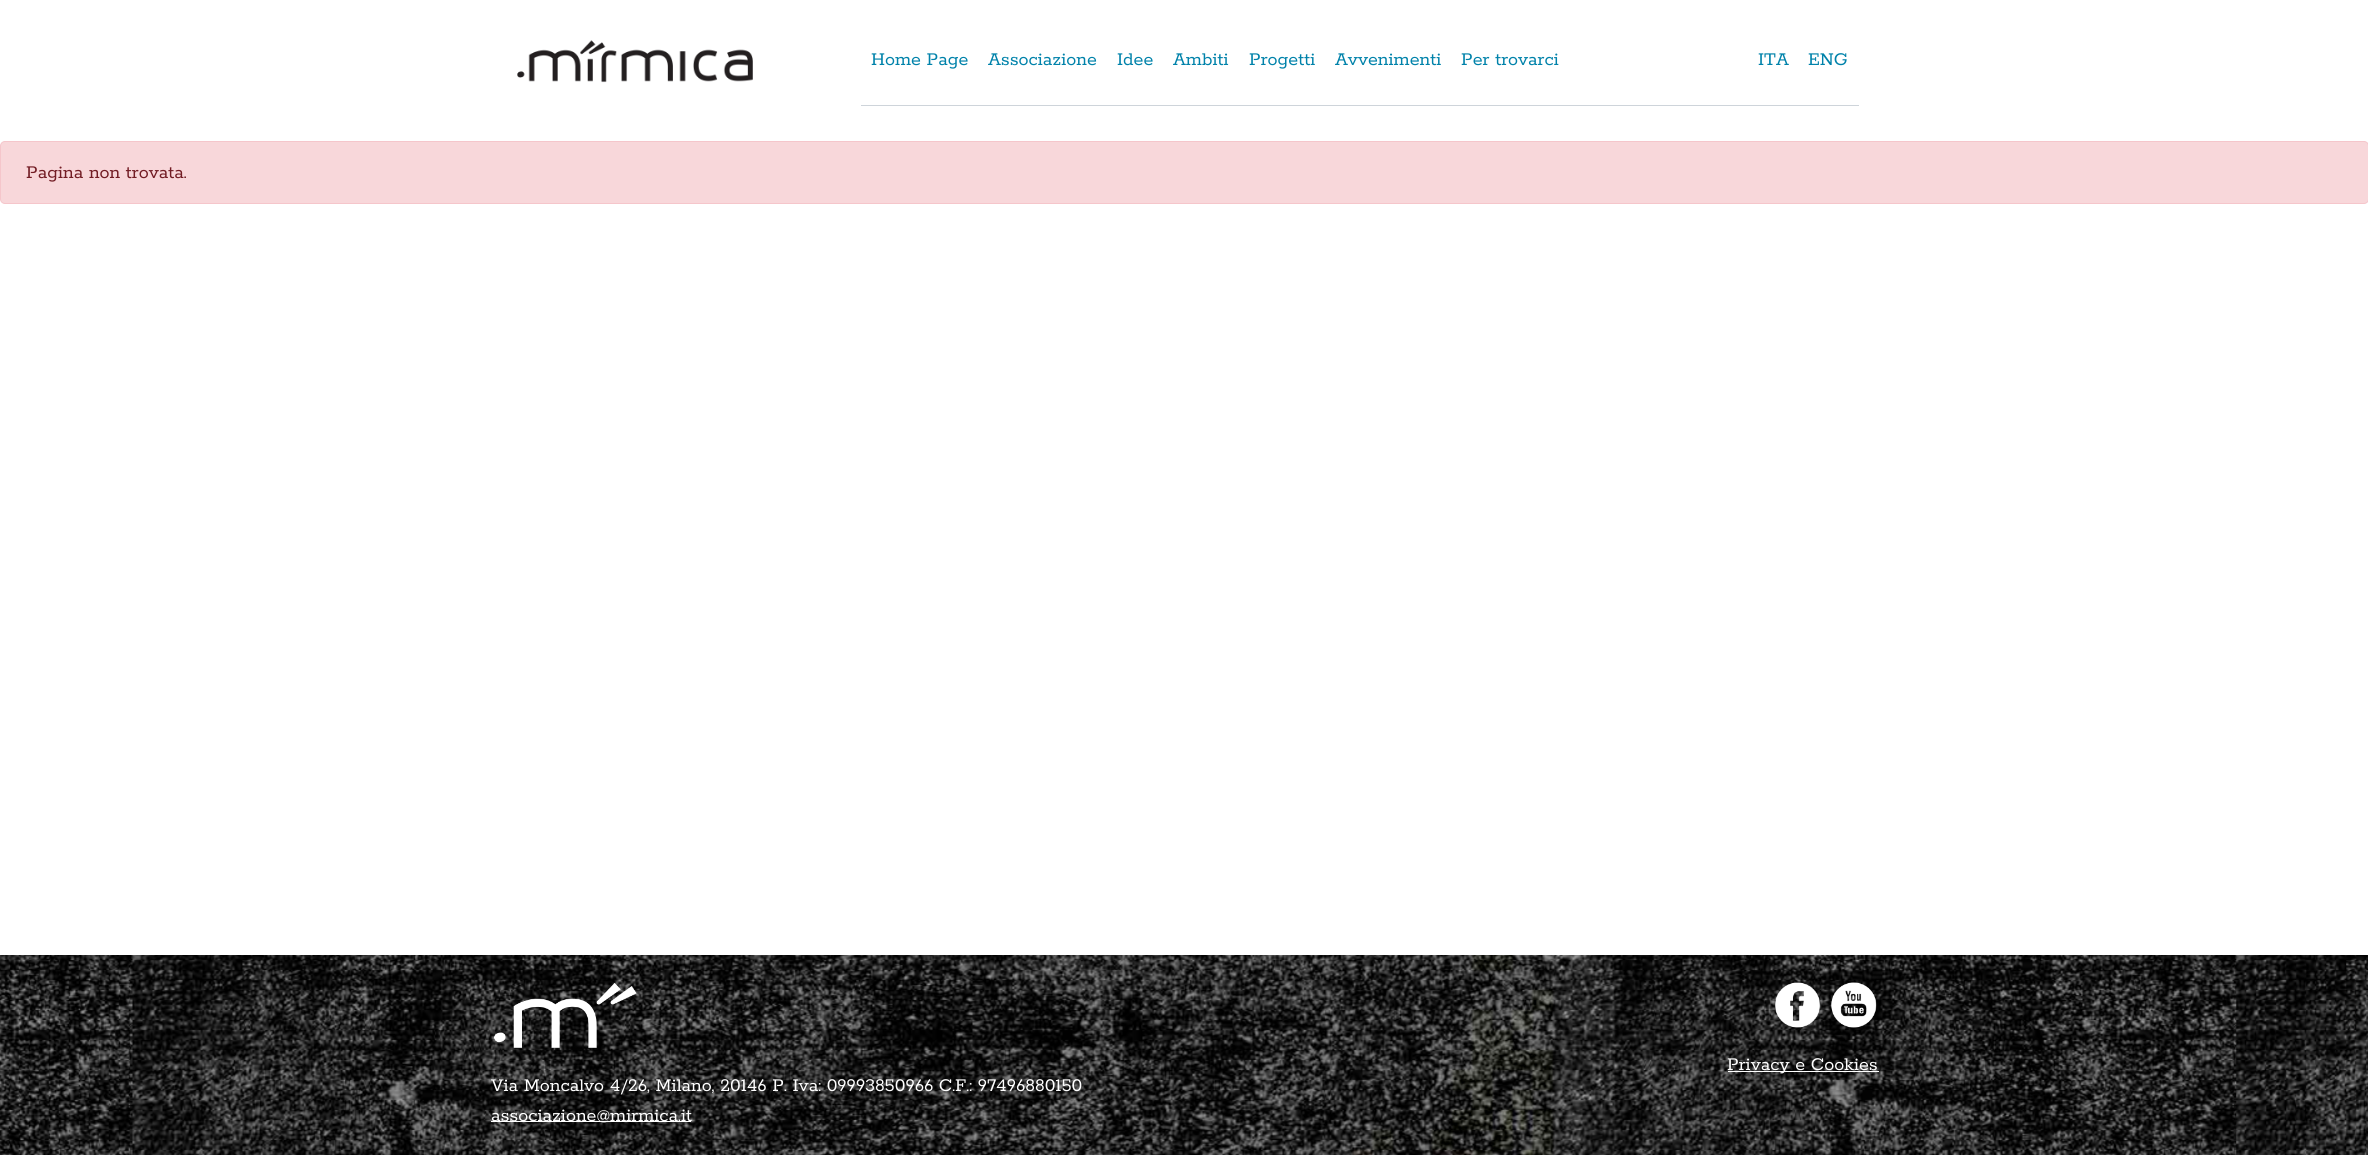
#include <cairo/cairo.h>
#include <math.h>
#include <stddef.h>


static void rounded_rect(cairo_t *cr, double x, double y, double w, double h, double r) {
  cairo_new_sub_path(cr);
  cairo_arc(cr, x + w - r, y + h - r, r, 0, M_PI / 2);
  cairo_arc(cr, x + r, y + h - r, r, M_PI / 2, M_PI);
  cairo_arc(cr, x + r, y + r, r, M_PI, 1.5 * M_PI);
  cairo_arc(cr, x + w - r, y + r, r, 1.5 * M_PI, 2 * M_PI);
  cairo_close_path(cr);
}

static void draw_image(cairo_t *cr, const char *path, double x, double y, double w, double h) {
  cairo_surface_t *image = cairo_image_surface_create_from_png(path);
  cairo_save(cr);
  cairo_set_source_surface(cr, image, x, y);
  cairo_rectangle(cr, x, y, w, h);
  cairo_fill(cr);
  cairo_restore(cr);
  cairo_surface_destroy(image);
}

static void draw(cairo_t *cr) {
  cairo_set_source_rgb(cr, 1, 1, 1);
  cairo_paint(cr);
  draw_image(cr, "images/1.png", 517, 40, 236, 43);
  cairo_set_source_rgb(cr, 206 / 255.0, 212 / 255.0, 218 / 255.0);
  cairo_rectangle(cr, 861, 105, 998, 1);
  cairo_fill(cr);
  cairo_set_source_rgb(cr, 248 / 255.0, 215 / 255.0, 218 / 255.0);
  rounded_rect(cr, 0.5, 141.5, 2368, 62, 4.5);
  cairo_fill_preserve(cr);
  cairo_set_source_rgb(cr, 245 / 255.0, 198 / 255.0, 203 / 255.0);
  cairo_set_line_width(cr, 1);
  cairo_stroke(cr);
  draw_image(cr, "images/2.png", 0, 955, 2368, 200);
  draw_image(cr, "images/3.png", 1775, 982, 45, 46);
  draw_image(cr, "images/4.png", 1831, 982, 46, 46);
  cairo_set_source_rgb(cr, 1, 1, 1);
  cairo_rectangle(cr, 1728, 1071, 151, 1);
  cairo_fill(cr);
  draw_image(cr, "images/5.png", 494, 983, 143, 65);
  cairo_rectangle(cr, 491, 1121, 200, 1);
  cairo_fill(cr);
  cairo_select_font_face(cr, "Rokkitt", CAIRO_FONT_SLANT_NORMAL, CAIRO_FONT_WEIGHT_NORMAL);
  cairo_set_font_size(cr, 20);
  cairo_set_source_rgb(cr, 0, 130 / 255.0, 170 / 255.0);
  cairo_move_to(cr, 871, 65);
  cairo_show_text(cr, "Home Page");
  cairo_move_to(cr, 988, 65);
  cairo_show_text(cr, "Associazione");
  cairo_move_to(cr, 1117, 65);
  cairo_show_text(cr, "Idee");
  cairo_move_to(cr, 1173, 65);
  cairo_show_text(cr, "Ambiti");
  cairo_move_to(cr, 1249, 65);
  cairo_show_text(cr, "Progetti");
  cairo_move_to(cr, 1335, 65);
  cairo_show_text(cr, "Avvenimenti");
  cairo_move_to(cr, 1461, 65);
  cairo_show_text(cr, "Per trovarci");
  cairo_move_to(cr, 1758, 65);
  cairo_show_text(cr, "ITA");
  cairo_move_to(cr, 1808, 65);
  cairo_show_text(cr, "ENG");
  cairo_set_source_rgb(cr, 114 / 255.0, 28 / 255.0, 36 / 255.0);
  cairo_move_to(cr, 26, 178);
  cairo_show_text(cr, "Pagina non trovata.");
  cairo_set_source_rgb(cr, 1, 1, 1);
  cairo_move_to(cr, 1727, 1070);
  cairo_show_text(cr, "Privacy e Cookies");
  cairo_move_to(cr, 491, 1091);
  cairo_show_text(cr, "Via Moncalvo 4/26, Milano, 20146 P. Iva: 09993850966 C.F.: 97496880150");
  cairo_move_to(cr, 491, 1121);
  cairo_show_text(cr, "associazione@mirmica.it");
}

int main(void) {
  cairo_surface_t *surface = cairo_image_surface_create(CAIRO_FORMAT_RGB24, 2368, 1155);
  cairo_t *cr = cairo_create(surface);
  cairo_font_options_t *options = cairo_font_options_create();
  cairo_font_options_set_hint_metrics(options, CAIRO_HINT_METRICS_OFF);
  cairo_font_options_set_hint_style(options, CAIRO_HINT_STYLE_NONE);
  cairo_set_font_options(cr, options);
  cairo_set_miter_limit(cr, 4);
  draw(cr);
  cairo_surface_write_to_png(surface, "out.png");
  cairo_font_options_destroy(options);
  cairo_destroy(cr);
  cairo_surface_destroy(surface);
  return 0;
}
